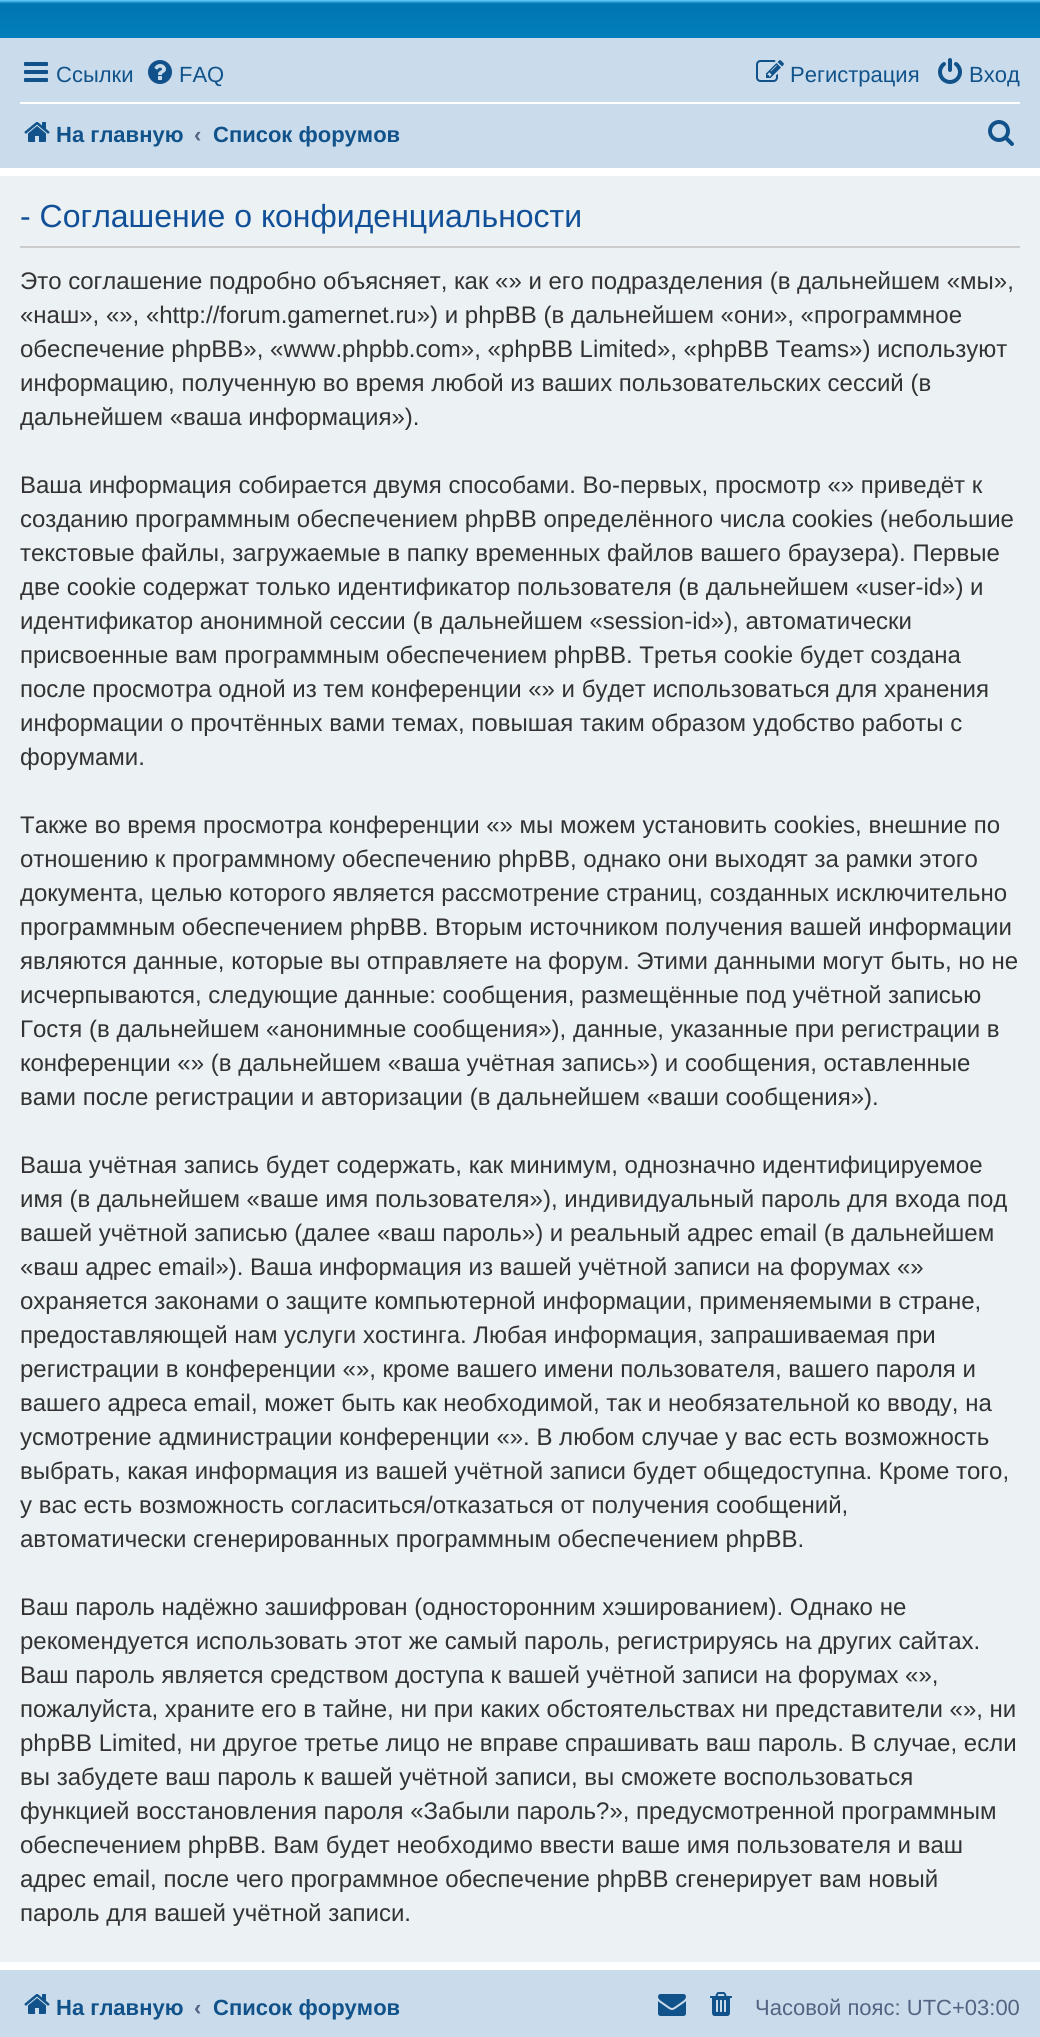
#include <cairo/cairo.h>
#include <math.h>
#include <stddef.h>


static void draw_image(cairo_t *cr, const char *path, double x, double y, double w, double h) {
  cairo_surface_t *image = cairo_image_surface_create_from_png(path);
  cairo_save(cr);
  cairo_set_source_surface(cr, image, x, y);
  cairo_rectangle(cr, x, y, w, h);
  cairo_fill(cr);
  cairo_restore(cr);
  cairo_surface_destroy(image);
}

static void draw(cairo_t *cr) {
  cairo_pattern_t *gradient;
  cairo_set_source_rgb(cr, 1, 1, 1);
  cairo_paint(cr);
  gradient = cairo_pattern_create_linear(520, 0, 520, 184);
  cairo_pattern_add_color_stop_rgba(gradient, 0, 106 / 255.0, 206 / 255.0, 1, 1);
  cairo_pattern_add_color_stop_rgba(gradient, 0.02, 0, 118 / 255.0, 177 / 255.0, 1);
  cairo_pattern_add_color_stop_rgba(gradient, 1, 18 / 255.0, 163 / 255.0, 235 / 255.0, 1);
  cairo_set_source(cr, gradient);
  cairo_pattern_destroy(gradient);
  cairo_rectangle(cr, 0, 0, 1040, 38);
  cairo_fill(cr);
  cairo_set_source_rgb(cr, 202 / 255.0, 220 / 255.0, 235 / 255.0);
  cairo_rectangle(cr, 0, 38, 1040, 130);
  cairo_fill(cr);
  draw_image(cr, "images/1.png", 24, 62, 24, 20);
  draw_image(cr, "images/2.png", 148, 60, 24, 24);
  draw_image(cr, "images/3.png", 756, 60, 28, 22);
  draw_image(cr, "images/4.png", 938, 58, 24, 26);
  cairo_set_source_rgb(cr, 1, 1, 1);
  cairo_rectangle(cr, 20, 102, 1000, 2);
  cairo_fill(cr);
  draw_image(cr, "images/5.png", 24, 122, 26, 20);
  draw_image(cr, "images/6.png", 988, 120, 26, 26);
  cairo_set_source_rgb(cr, 236 / 255.0, 241 / 255.0, 243 / 255.0);
  cairo_rectangle(cr, 0, 176, 1040, 1786);
  cairo_fill(cr);
  cairo_set_source_rgb(cr, 204 / 255.0, 204 / 255.0, 204 / 255.0);
  cairo_rectangle(cr, 20, 246, 1000, 2);
  cairo_fill(cr);
  cairo_set_source_rgb(cr, 202 / 255.0, 220 / 255.0, 235 / 255.0);
  cairo_rectangle(cr, 0, 1970, 1040, 67);
  cairo_fill(cr);
  draw_image(cr, "images/5.png", 24, 1994, 26, 20);
  draw_image(cr, "images/7.png", 658, 1994, 28, 22);
  draw_image(cr, "images/8.png", 710, 1992, 22, 24);
  cairo_select_font_face(cr, "Liberation Sans", CAIRO_FONT_SLANT_NORMAL, CAIRO_FONT_WEIGHT_NORMAL);
  cairo_set_font_size(cr, 22);
  cairo_set_source_rgb(cr, 16 / 255.0, 82 / 255.0, 137 / 255.0);
  cairo_move_to(cr, 56, 82);
  cairo_show_text(cr, "Ссылки");
  cairo_move_to(cr, 179, 82);
  cairo_show_text(cr, "FAQ");
  cairo_move_to(cr, 790, 82);
  cairo_show_text(cr, "Регистрация");
  cairo_move_to(cr, 969, 82);
  cairo_show_text(cr, "Вход");
  cairo_select_font_face(cr, "Liberation Sans", CAIRO_FONT_SLANT_NORMAL, CAIRO_FONT_WEIGHT_BOLD);
  cairo_move_to(cr, 56, 142);
  cairo_show_text(cr, "На главную");
  cairo_set_source_rgb(cr, 83 / 255.0, 100 / 255.0, 130 / 255.0);
  cairo_move_to(cr, 194, 142);
  cairo_show_text(cr, "‹");
  cairo_set_source_rgb(cr, 16 / 255.0, 82 / 255.0, 137 / 255.0);
  cairo_move_to(cr, 213, 142);
  cairo_show_text(cr, "Список форумов");
  cairo_select_font_face(cr, "Liberation Sans", CAIRO_FONT_SLANT_NORMAL, CAIRO_FONT_WEIGHT_NORMAL);
  cairo_set_font_size(cr, 32);
  cairo_set_source_rgb(cr, 17 / 255.0, 80 / 255.0, 152 / 255.0);
  cairo_move_to(cr, 20, 227);
  cairo_show_text(cr, "- Соглашение о конфиденциальности");
  cairo_set_font_size(cr, 24);
  cairo_set_source_rgb(cr, 51 / 255.0, 51 / 255.0, 51 / 255.0);
  cairo_move_to(cr, 20, 289);
  cairo_show_text(cr, "Это соглашение подробно объясняет, как «» и его подразделения (в дальнейшем «мы»,");
  cairo_move_to(cr, 20, 323);
  cairo_show_text(cr, "«наш», «», «http://forum.gamernet.ru») и phpBB (в дальнейшем «они», «программное");
  cairo_move_to(cr, 20, 357);
  cairo_show_text(cr, "обеспечение phpBB», «www.phpbb.com», «phpBB Limited», «phpBB Teams») используют");
  cairo_move_to(cr, 20, 391);
  cairo_show_text(cr, "информацию, полученную во время любой из ваших пользовательских сессий (в");
  cairo_move_to(cr, 20, 425);
  cairo_show_text(cr, "дальнейшем «ваша информация»).");
  cairo_move_to(cr, 20, 493);
  cairo_show_text(cr, "Ваша информация собирается двумя способами. Во-первых, просмотр «» приведёт к");
  cairo_move_to(cr, 20, 527);
  cairo_show_text(cr, "созданию программным обеспечением phpBB определённого числа cookies (небольшие");
  cairo_move_to(cr, 20, 561);
  cairo_show_text(cr, "текстовые файлы, загружаемые в папку временных файлов вашего браузера). Первые");
  cairo_move_to(cr, 20, 595);
  cairo_show_text(cr, "две cookie содержат только идентификатор пользователя (в дальнейшем «user-id») и");
  cairo_move_to(cr, 20, 629);
  cairo_show_text(cr, "идентификатор анонимной сессии (в дальнейшем «session-id»), автоматически");
  cairo_move_to(cr, 20, 663);
  cairo_show_text(cr, "присвоенные вам программным обеспечением phpBB. Третья cookie будет создана");
  cairo_move_to(cr, 20, 697);
  cairo_show_text(cr, "после просмотра одной из тем конференции «» и будет использоваться для хранения");
  cairo_move_to(cr, 20, 731);
  cairo_show_text(cr, "информации о прочтённых вами темах, повышая таким образом удобство работы с");
  cairo_move_to(cr, 20, 765);
  cairo_show_text(cr, "форумами.");
  cairo_move_to(cr, 20, 833);
  cairo_show_text(cr, "Также во время просмотра конференции «» мы можем установить cookies, внешние по");
  cairo_move_to(cr, 20, 867);
  cairo_show_text(cr, "отношению к программному обеспечению phpBB, однако они выходят за рамки этого");
  cairo_move_to(cr, 20, 901);
  cairo_show_text(cr, "документа, целью которого является рассмотрение страниц, созданных исключительно");
  cairo_move_to(cr, 20, 935);
  cairo_show_text(cr, "программным обеспечением phpBB. Вторым источником получения вашей информации");
  cairo_move_to(cr, 20, 969);
  cairo_show_text(cr, "являются данные, которые вы отправляете на форум. Этими данными могут быть, но не");
  cairo_move_to(cr, 20, 1003);
  cairo_show_text(cr, "исчерпываются, следующие данные: сообщения, размещённые под учётной записью");
  cairo_move_to(cr, 20, 1037);
  cairo_show_text(cr, "Гостя (в дальнейшем «анонимные сообщения»), данные, указанные при регистрации в");
  cairo_move_to(cr, 20, 1071);
  cairo_show_text(cr, "конференции «» (в дальнейшем «ваша учётная запись») и сообщения, оставленные");
  cairo_move_to(cr, 20, 1105);
  cairo_show_text(cr, "вами после регистрации и авторизации (в дальнейшем «ваши сообщения»).");
  cairo_move_to(cr, 20, 1173);
  cairo_show_text(cr, "Ваша учётная запись будет содержать, как минимум, однозначно идентифицируемое");
  cairo_move_to(cr, 20, 1207);
  cairo_show_text(cr, "имя (в дальнейшем «ваше имя пользователя»), индивидуальный пароль для входа под");
  cairo_move_to(cr, 20, 1241);
  cairo_show_text(cr, "вашей учётной записью (далее «ваш пароль») и реальный адрес email (в дальнейшем");
  cairo_move_to(cr, 20, 1275);
  cairo_show_text(cr, "«ваш адрес email»). Ваша информация из вашей учётной записи на форумах «»");
  cairo_move_to(cr, 20, 1309);
  cairo_show_text(cr, "охраняется законами о защите компьютерной информации, применяемыми в стране,");
  cairo_move_to(cr, 20, 1343);
  cairo_show_text(cr, "предоставляющей нам услуги хостинга. Любая информация, запрашиваемая при");
  cairo_move_to(cr, 20, 1377);
  cairo_show_text(cr, "регистрации в конференции «», кроме вашего имени пользователя, вашего пароля и");
  cairo_move_to(cr, 20, 1411);
  cairo_show_text(cr, "вашего адреса email, может быть как необходимой, так и необязательной ко вводу, на");
  cairo_move_to(cr, 20, 1445);
  cairo_show_text(cr, "усмотрение администрации конференции «». В любом случае у вас есть возможность");
  cairo_move_to(cr, 20, 1479);
  cairo_show_text(cr, "выбрать, какая информация из вашей учётной записи будет общедоступна. Кроме того,");
  cairo_move_to(cr, 20, 1513);
  cairo_show_text(cr, "у вас есть возможность согласиться/отказаться от получения сообщений,");
  cairo_move_to(cr, 20, 1547);
  cairo_show_text(cr, "автоматически сгенерированных программным обеспечением phpBB.");
  cairo_move_to(cr, 20, 1615);
  cairo_show_text(cr, "Ваш пароль надёжно зашифрован (односторонним хэшированием). Однако не");
  cairo_move_to(cr, 20, 1649);
  cairo_show_text(cr, "рекомендуется использовать этот же самый пароль, регистрируясь на других сайтах.");
  cairo_move_to(cr, 20, 1683);
  cairo_show_text(cr, "Ваш пароль является средством доступа к вашей учётной записи на форумах «»,");
  cairo_move_to(cr, 20, 1717);
  cairo_show_text(cr, "пожалуйста, храните его в тайне, ни при каких обстоятельствах ни представители «», ни");
  cairo_move_to(cr, 20, 1751);
  cairo_show_text(cr, "phpBB Limited, ни другое третье лицо не вправе спрашивать ваш пароль. В случае, если");
  cairo_move_to(cr, 20, 1785);
  cairo_show_text(cr, "вы забудете ваш пароль к вашей учётной записи, вы сможете воспользоваться");
  cairo_move_to(cr, 20, 1819);
  cairo_show_text(cr, "функцией восстановления пароля «Забыли пароль?», предусмотренной программным");
  cairo_move_to(cr, 20, 1853);
  cairo_show_text(cr, "обеспечением phpBB. Вам будет необходимо ввести ваше имя пользователя и ваш");
  cairo_move_to(cr, 20, 1887);
  cairo_show_text(cr, "адрес email, после чего программное обеспечение phpBB сгенерирует вам новый");
  cairo_move_to(cr, 20, 1921);
  cairo_show_text(cr, "пароль для вашей учётной записи.");
  cairo_select_font_face(cr, "Liberation Sans", CAIRO_FONT_SLANT_NORMAL, CAIRO_FONT_WEIGHT_BOLD);
  cairo_set_font_size(cr, 22);
  cairo_set_source_rgb(cr, 16 / 255.0, 82 / 255.0, 137 / 255.0);
  cairo_move_to(cr, 56, 2015);
  cairo_show_text(cr, "На главную");
  cairo_set_source_rgb(cr, 83 / 255.0, 100 / 255.0, 130 / 255.0);
  cairo_move_to(cr, 194, 2015);
  cairo_show_text(cr, "‹");
  cairo_set_source_rgb(cr, 16 / 255.0, 82 / 255.0, 137 / 255.0);
  cairo_move_to(cr, 213, 2015);
  cairo_show_text(cr, "Список форумов");
  cairo_select_font_face(cr, "Liberation Sans", CAIRO_FONT_SLANT_NORMAL, CAIRO_FONT_WEIGHT_NORMAL);
  cairo_set_source_rgb(cr, 83 / 255.0, 100 / 255.0, 130 / 255.0);
  cairo_move_to(cr, 755, 2015);
  cairo_show_text(cr, "Часовой пояс: UTC+03:00");
}

int main(void) {
  cairo_surface_t *surface = cairo_image_surface_create(CAIRO_FORMAT_RGB24, 1040, 2037);
  cairo_t *cr = cairo_create(surface);
  cairo_font_options_t *options = cairo_font_options_create();
  cairo_font_options_set_hint_metrics(options, CAIRO_HINT_METRICS_OFF);
  cairo_font_options_set_hint_style(options, CAIRO_HINT_STYLE_NONE);
  cairo_set_font_options(cr, options);
  cairo_set_miter_limit(cr, 4);
  draw(cr);
  cairo_surface_write_to_png(surface, "out.png");
  cairo_font_options_destroy(options);
  cairo_destroy(cr);
  cairo_surface_destroy(surface);
  return 0;
}
